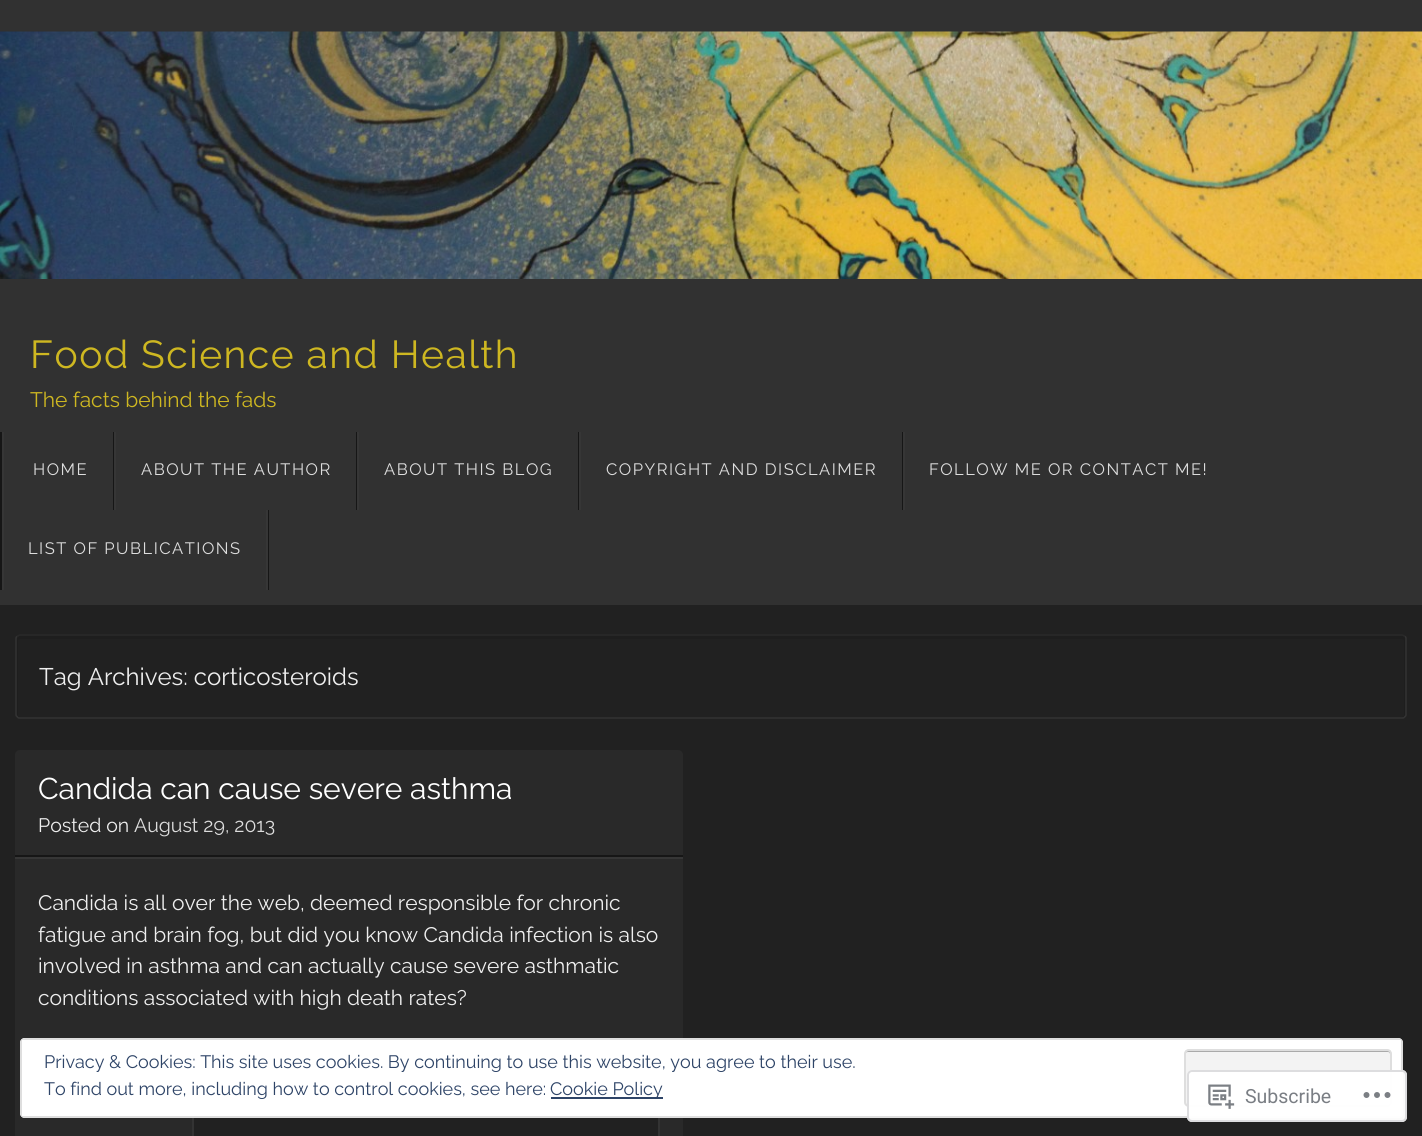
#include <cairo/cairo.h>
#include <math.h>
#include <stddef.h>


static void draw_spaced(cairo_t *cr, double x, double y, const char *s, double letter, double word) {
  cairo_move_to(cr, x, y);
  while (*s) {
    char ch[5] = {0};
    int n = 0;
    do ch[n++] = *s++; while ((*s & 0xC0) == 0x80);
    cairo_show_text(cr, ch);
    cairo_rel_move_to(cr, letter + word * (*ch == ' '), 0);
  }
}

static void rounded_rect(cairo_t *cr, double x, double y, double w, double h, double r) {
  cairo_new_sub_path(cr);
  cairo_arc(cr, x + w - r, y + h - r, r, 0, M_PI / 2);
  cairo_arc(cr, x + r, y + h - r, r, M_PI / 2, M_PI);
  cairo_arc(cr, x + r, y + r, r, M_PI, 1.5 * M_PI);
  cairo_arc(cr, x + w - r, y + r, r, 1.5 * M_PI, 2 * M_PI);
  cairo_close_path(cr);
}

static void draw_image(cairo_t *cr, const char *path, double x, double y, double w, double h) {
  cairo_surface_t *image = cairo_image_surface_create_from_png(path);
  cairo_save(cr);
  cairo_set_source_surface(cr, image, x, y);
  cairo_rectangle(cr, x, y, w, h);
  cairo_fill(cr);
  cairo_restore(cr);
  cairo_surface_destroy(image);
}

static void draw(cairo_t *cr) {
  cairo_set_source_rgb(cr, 33 / 255.0, 33 / 255.0, 33 / 255.0);
  cairo_paint(cr);
  cairo_set_source_rgb(cr, 49 / 255.0, 49 / 255.0, 49 / 255.0);
  cairo_rectangle(cr, 0, 0, 1422, 605);
  cairo_fill(cr);
  draw_image(cr, "images/1.png", 0, 31, 1422, 248);
  cairo_set_source_rgb(cr, 22 / 255.0, 22 / 255.0, 22 / 255.0);
  cairo_rectangle(cr, 0, 432, 2, 158);
  cairo_fill(cr);
  cairo_set_source_rgb(cr, 54 / 255.0, 54 / 255.0, 54 / 255.0);
  cairo_rectangle(cr, 2, 432, 2, 158);
  cairo_fill(cr);
  cairo_set_source_rgb(cr, 22 / 255.0, 22 / 255.0, 22 / 255.0);
  cairo_rectangle(cr, 113, 432, 1, 78);
  cairo_fill(cr);
  cairo_set_source_rgb(cr, 54 / 255.0, 54 / 255.0, 54 / 255.0);
  cairo_rectangle(cr, 114, 432, 2, 78);
  cairo_fill(cr);
  cairo_set_source_rgb(cr, 22 / 255.0, 22 / 255.0, 22 / 255.0);
  cairo_rectangle(cr, 356, 432, 1, 78);
  cairo_fill(cr);
  cairo_set_source_rgb(cr, 54 / 255.0, 54 / 255.0, 54 / 255.0);
  cairo_rectangle(cr, 357, 432, 2, 78);
  cairo_fill(cr);
  cairo_set_source_rgb(cr, 22 / 255.0, 22 / 255.0, 22 / 255.0);
  cairo_rectangle(cr, 578, 432, 1, 78);
  cairo_fill(cr);
  cairo_set_source_rgb(cr, 54 / 255.0, 54 / 255.0, 54 / 255.0);
  cairo_rectangle(cr, 579, 432, 2, 78);
  cairo_fill(cr);
  cairo_set_source_rgb(cr, 22 / 255.0, 22 / 255.0, 22 / 255.0);
  cairo_rectangle(cr, 902, 432, 1, 78);
  cairo_fill(cr);
  cairo_set_source_rgb(cr, 54 / 255.0, 54 / 255.0, 54 / 255.0);
  cairo_rectangle(cr, 903, 432, 2, 78);
  cairo_fill(cr);
  cairo_set_source_rgb(cr, 22 / 255.0, 22 / 255.0, 22 / 255.0);
  cairo_rectangle(cr, 268, 510, 1, 80);
  cairo_fill(cr);
  cairo_set_source_rgb(cr, 54 / 255.0, 54 / 255.0, 54 / 255.0);
  cairo_rectangle(cr, 266, 510, 2, 80);
  cairo_fill(cr);
  cairo_set_source_rgb(cr, 30 / 255.0, 30 / 255.0, 30 / 255.0);
  cairo_new_path(cr);
  cairo_move_to(cr, 20, 639);
  cairo_line_to(cr, 1402, 639);
  cairo_line_to(cr, 1404, 640);
  cairo_line_to(cr, 1404, 716);
  cairo_line_to(cr, 1402, 717);
  cairo_line_to(cr, 1403, 717);
  cairo_curve_to(cr, 1405, 717, 1406, 716, 1406, 714);
  cairo_line_to(cr, 1406, 639);
  cairo_curve_to(cr, 1406, 637, 1405, 636, 1403, 636);
  cairo_line_to(cr, 20, 636);
  cairo_curve_to(cr, 18, 636, 17, 637, 17, 639);
  cairo_line_to(cr, 17, 714);
  cairo_curve_to(cr, 17, 716, 18, 717, 20, 717);
  cairo_line_to(cr, 18, 716);
  cairo_line_to(cr, 18, 640);
  cairo_close_path(cr);
  cairo_fill(cr);
  cairo_new_path(cr);
  cairo_move_to(cr, 17, 636.5);
  cairo_line_to(cr, 19.5, 635);
  cairo_line_to(cr, 1402.5, 635);
  cairo_line_to(cr, 1405, 636.5);
  cairo_set_source_rgb(cr, 41 / 255.0, 41 / 255.0, 41 / 255.0);
  cairo_set_line_width(cr, 1.5);
  cairo_stroke(cr);
  cairo_new_path(cr);
  cairo_move_to(cr, 1405, 636.5);
  cairo_curve_to(cr, 1406, 637, 1406, 638, 1406, 639);
  cairo_line_to(cr, 1406, 714);
  cairo_curve_to(cr, 1406, 715, 1406, 716, 1405, 716.5);
  cairo_curve_to(cr, 1404.5, 717.5, 1403.5, 718, 1402.5, 718);
  cairo_line_to(cr, 19.5, 718);
  cairo_curve_to(cr, 18.5, 718, 17.5, 717.5, 17, 716.5);
  cairo_curve_to(cr, 16, 716, 16, 715, 16, 714);
  cairo_line_to(cr, 16, 639);
  cairo_curve_to(cr, 16, 638, 16, 637, 17, 636.5);
  cairo_set_source_rgb(cr, 51 / 255.0, 51 / 255.0, 51 / 255.0);
  cairo_stroke(cr);
  cairo_set_source_rgb(cr, 41 / 255.0, 41 / 255.0, 41 / 255.0);
  rounded_rect(cr, 15, 750, 668, 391, 5);
  cairo_fill(cr);
  cairo_set_source_rgb(cr, 22 / 255.0, 22 / 255.0, 22 / 255.0);
  cairo_rectangle(cr, 15, 855, 668, 2);
  cairo_fill(cr);
  cairo_set_source_rgb(cr, 54 / 255.0, 54 / 255.0, 54 / 255.0);
  cairo_rectangle(cr, 15, 857, 668, 2);
  cairo_fill(cr);
  cairo_set_source_rgb(cr, 33 / 255.0, 33 / 255.0, 33 / 255.0);
  cairo_rectangle(cr, 194, 1118, 464, 18);
  cairo_fill(cr);
  cairo_rectangle(cr, 193, 1062, 466, 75);
  cairo_set_source_rgb(cr, 51 / 255.0, 51 / 255.0, 51 / 255.0);
  cairo_set_line_width(cr, 2);
  cairo_stroke(cr);
  cairo_set_source_rgb(cr, 1, 1, 1);
  rounded_rect(cr, 20, 1038, 1383, 80, 5);
  cairo_fill(cr);
  cairo_set_source_rgb(cr, 222 / 255.0, 222 / 255.0, 222 / 255.0);
  cairo_set_fill_rule(cr, CAIRO_FILL_RULE_EVEN_ODD);
  cairo_new_path(cr);
  cairo_move_to(cr, 25, 1038);
  cairo_curve_to(cr, 22, 1038, 20, 1040, 20, 1043);
  cairo_line_to(cr, 20, 1113);
  cairo_curve_to(cr, 20, 1116, 22, 1118, 25, 1118);
  cairo_line_to(cr, 1398, 1118);
  cairo_curve_to(cr, 1401, 1118, 1403, 1116, 1403, 1113);
  cairo_line_to(cr, 1403, 1043);
  cairo_curve_to(cr, 1403, 1040, 1401, 1038, 1398, 1038);
  cairo_close_path(cr);
  cairo_move_to(cr, 22, 1040);
  cairo_line_to(cr, 22, 1116);
  cairo_line_to(cr, 1401, 1116);
  cairo_line_to(cr, 1401, 1040);
  cairo_close_path(cr);
  cairo_fill(cr);
  cairo_set_source_rgb(cr, 243 / 255.0, 243 / 255.0, 243 / 255.0);
  rounded_rect(cr, 1184, 1049, 208, 58, 5);
  cairo_fill(cr);
  cairo_set_source_rgb(cr, 170 / 255.0, 170 / 255.0, 170 / 255.0);
  cairo_set_fill_rule(cr, CAIRO_FILL_RULE_WINDING);
  cairo_new_path(cr);
  cairo_move_to(cr, 1188, 1052);
  cairo_line_to(cr, 1388, 1052);
  cairo_curve_to(cr, 1389, 1052, 1390, 1053, 1390, 1054);
  cairo_line_to(cr, 1390, 1105);
  cairo_curve_to(cr, 1391, 1105, 1391, 1104, 1391, 1103);
  cairo_line_to(cr, 1391, 1053);
  cairo_curve_to(cr, 1391, 1051, 1390, 1050, 1388, 1050);
  cairo_line_to(cr, 1188, 1050);
  cairo_curve_to(cr, 1186, 1050, 1185, 1051, 1185, 1053);
  cairo_line_to(cr, 1185, 1054);
  cairo_curve_to(cr, 1185, 1053, 1186, 1052, 1188, 1052);
  cairo_close_path(cr);
  cairo_fill(cr);
  rounded_rect(cr, 1185, 1050, 206, 56, 4);
  cairo_set_source_rgb(cr, 222 / 255.0, 222 / 255.0, 222 / 255.0);
  cairo_stroke(cr);
  cairo_set_source_rgb(cr, 46 / 255.0, 68 / 255.0, 103 / 255.0);
  cairo_rectangle(cr, 551, 1097, 112, 2);
  cairo_fill(cr);
  cairo_set_source_rgba(cr, 1, 1, 1, 0.98);
  rounded_rect(cr, 1187, 1070, 220, 52, 5);
  cairo_fill(cr);
  rounded_rect(cr, 1188, 1071, 218, 50, 4);
  cairo_set_source_rgba(cr, 220 / 255.0, 220 / 255.0, 222 / 255.0, 0.98);
  cairo_stroke(cr);
  draw_image(cr, "images/2.png", 1208, 1084, 27, 25);
  draw_image(cr, "images/3.png", 1363, 1092, 28, 6);
  cairo_select_font_face(cr, "Raleway", CAIRO_FONT_SLANT_NORMAL, CAIRO_FONT_WEIGHT_NORMAL);
  cairo_set_font_size(cr, 39);
  cairo_set_source_rgb(cr, 206 / 255.0, 183 / 255.0, 33 / 255.0);
  draw_spaced(cr, 30, 368, "Food Science and Health", 1.5, 0);
  cairo_set_font_size(cr, 21);
  cairo_move_to(cr, 30, 407);
  cairo_show_text(cr, "The facts behind the fads");
  cairo_set_font_size(cr, 16.5);
  cairo_set_source_rgb(cr, 221 / 255.0, 221 / 255.0, 221 / 255.0);
  draw_spaced(cr, 33, 475, "HOME", 1.5, 0);
  draw_spaced(cr, 141, 475, "ABOUT THE AUTHOR", 1.5, 0);
  draw_spaced(cr, 384, 475, "ABOUT THIS BLOG", 1.5, 0);
  draw_spaced(cr, 606, 475, "COPYRIGHT AND DISCLAIMER", 1.5, 0);
  draw_spaced(cr, 929, 475, "FOLLOW ME OR CONTACT ME!", 1.5, 0);
  draw_spaced(cr, 28, 554, "LIST OF PUBLICATIONS", 1.5, 0);
  cairo_set_font_size(cr, 24);
  cairo_set_source_rgb(cr, 238 / 255.0, 238 / 255.0, 238 / 255.0);
  cairo_move_to(cr, 39, 685);
  cairo_show_text(cr, "Tag Archives: corticosteroids");
  cairo_set_font_size(cr, 30);
  cairo_set_source_rgb(cr, 1, 1, 1);
  cairo_move_to(cr, 38, 799);
  cairo_show_text(cr, "Candida can cause severe asthma");
  cairo_set_font_size(cr, 19.5);
  cairo_set_source_rgb(cr, 238 / 255.0, 238 / 255.0, 238 / 255.0);
  cairo_move_to(cr, 38, 832);
  cairo_show_text(cr, "Posted on");
  cairo_set_source_rgb(cr, 221 / 255.0, 221 / 255.0, 221 / 255.0);
  cairo_move_to(cr, 134, 832);
  cairo_show_text(cr, "August 29, 2013");
  cairo_set_font_size(cr, 21);
  cairo_set_source_rgb(cr, 238 / 255.0, 238 / 255.0, 238 / 255.0);
  cairo_move_to(cr, 38, 910);
  cairo_show_text(cr, "Candida is all over the web, deemed responsible for chronic");
  cairo_move_to(cr, 38, 942);
  cairo_show_text(cr, "fatigue and brain fog, but did you know Candida infection is also");
  cairo_move_to(cr, 38, 973);
  cairo_show_text(cr, "involved in asthma and can actually cause severe asthmatic");
  cairo_move_to(cr, 38, 1005);
  cairo_show_text(cr, "conditions associated with high death rates?");
  cairo_set_font_size(cr, 18);
  cairo_set_source_rgb(cr, 46 / 255.0, 68 / 255.0, 103 / 255.0);
  cairo_move_to(cr, 44, 1068);
  cairo_show_text(cr, "Privacy & Cookies: This site uses cookies. By continuing to use this website, you agree to their use.");
  cairo_move_to(cr, 44, 1095);
  cairo_show_text(cr, "To find out more, including how to control cookies, see here:");
  cairo_move_to(cr, 550, 1095);
  cairo_show_text(cr, "Cookie Policy");
  cairo_select_font_face(cr, "Roboto", CAIRO_FONT_SLANT_NORMAL, CAIRO_FONT_WEIGHT_NORMAL);
  cairo_set_font_size(cr, 19.5);
  cairo_set_source_rgb(cr, 122 / 255.0, 126 / 255.0, 132 / 255.0);
  cairo_move_to(cr, 1245, 1103);
  cairo_show_text(cr, "Subscribe");
}

int main(void) {
  cairo_surface_t *surface = cairo_image_surface_create(CAIRO_FORMAT_RGB24, 1422, 1136);
  cairo_t *cr = cairo_create(surface);
  cairo_font_options_t *options = cairo_font_options_create();
  cairo_font_options_set_hint_metrics(options, CAIRO_HINT_METRICS_OFF);
  cairo_font_options_set_hint_style(options, CAIRO_HINT_STYLE_NONE);
  cairo_set_font_options(cr, options);
  cairo_set_miter_limit(cr, 4);
  draw(cr);
  cairo_surface_write_to_png(surface, "out.png");
  cairo_font_options_destroy(options);
  cairo_destroy(cr);
  cairo_surface_destroy(surface);
  return 0;
}
